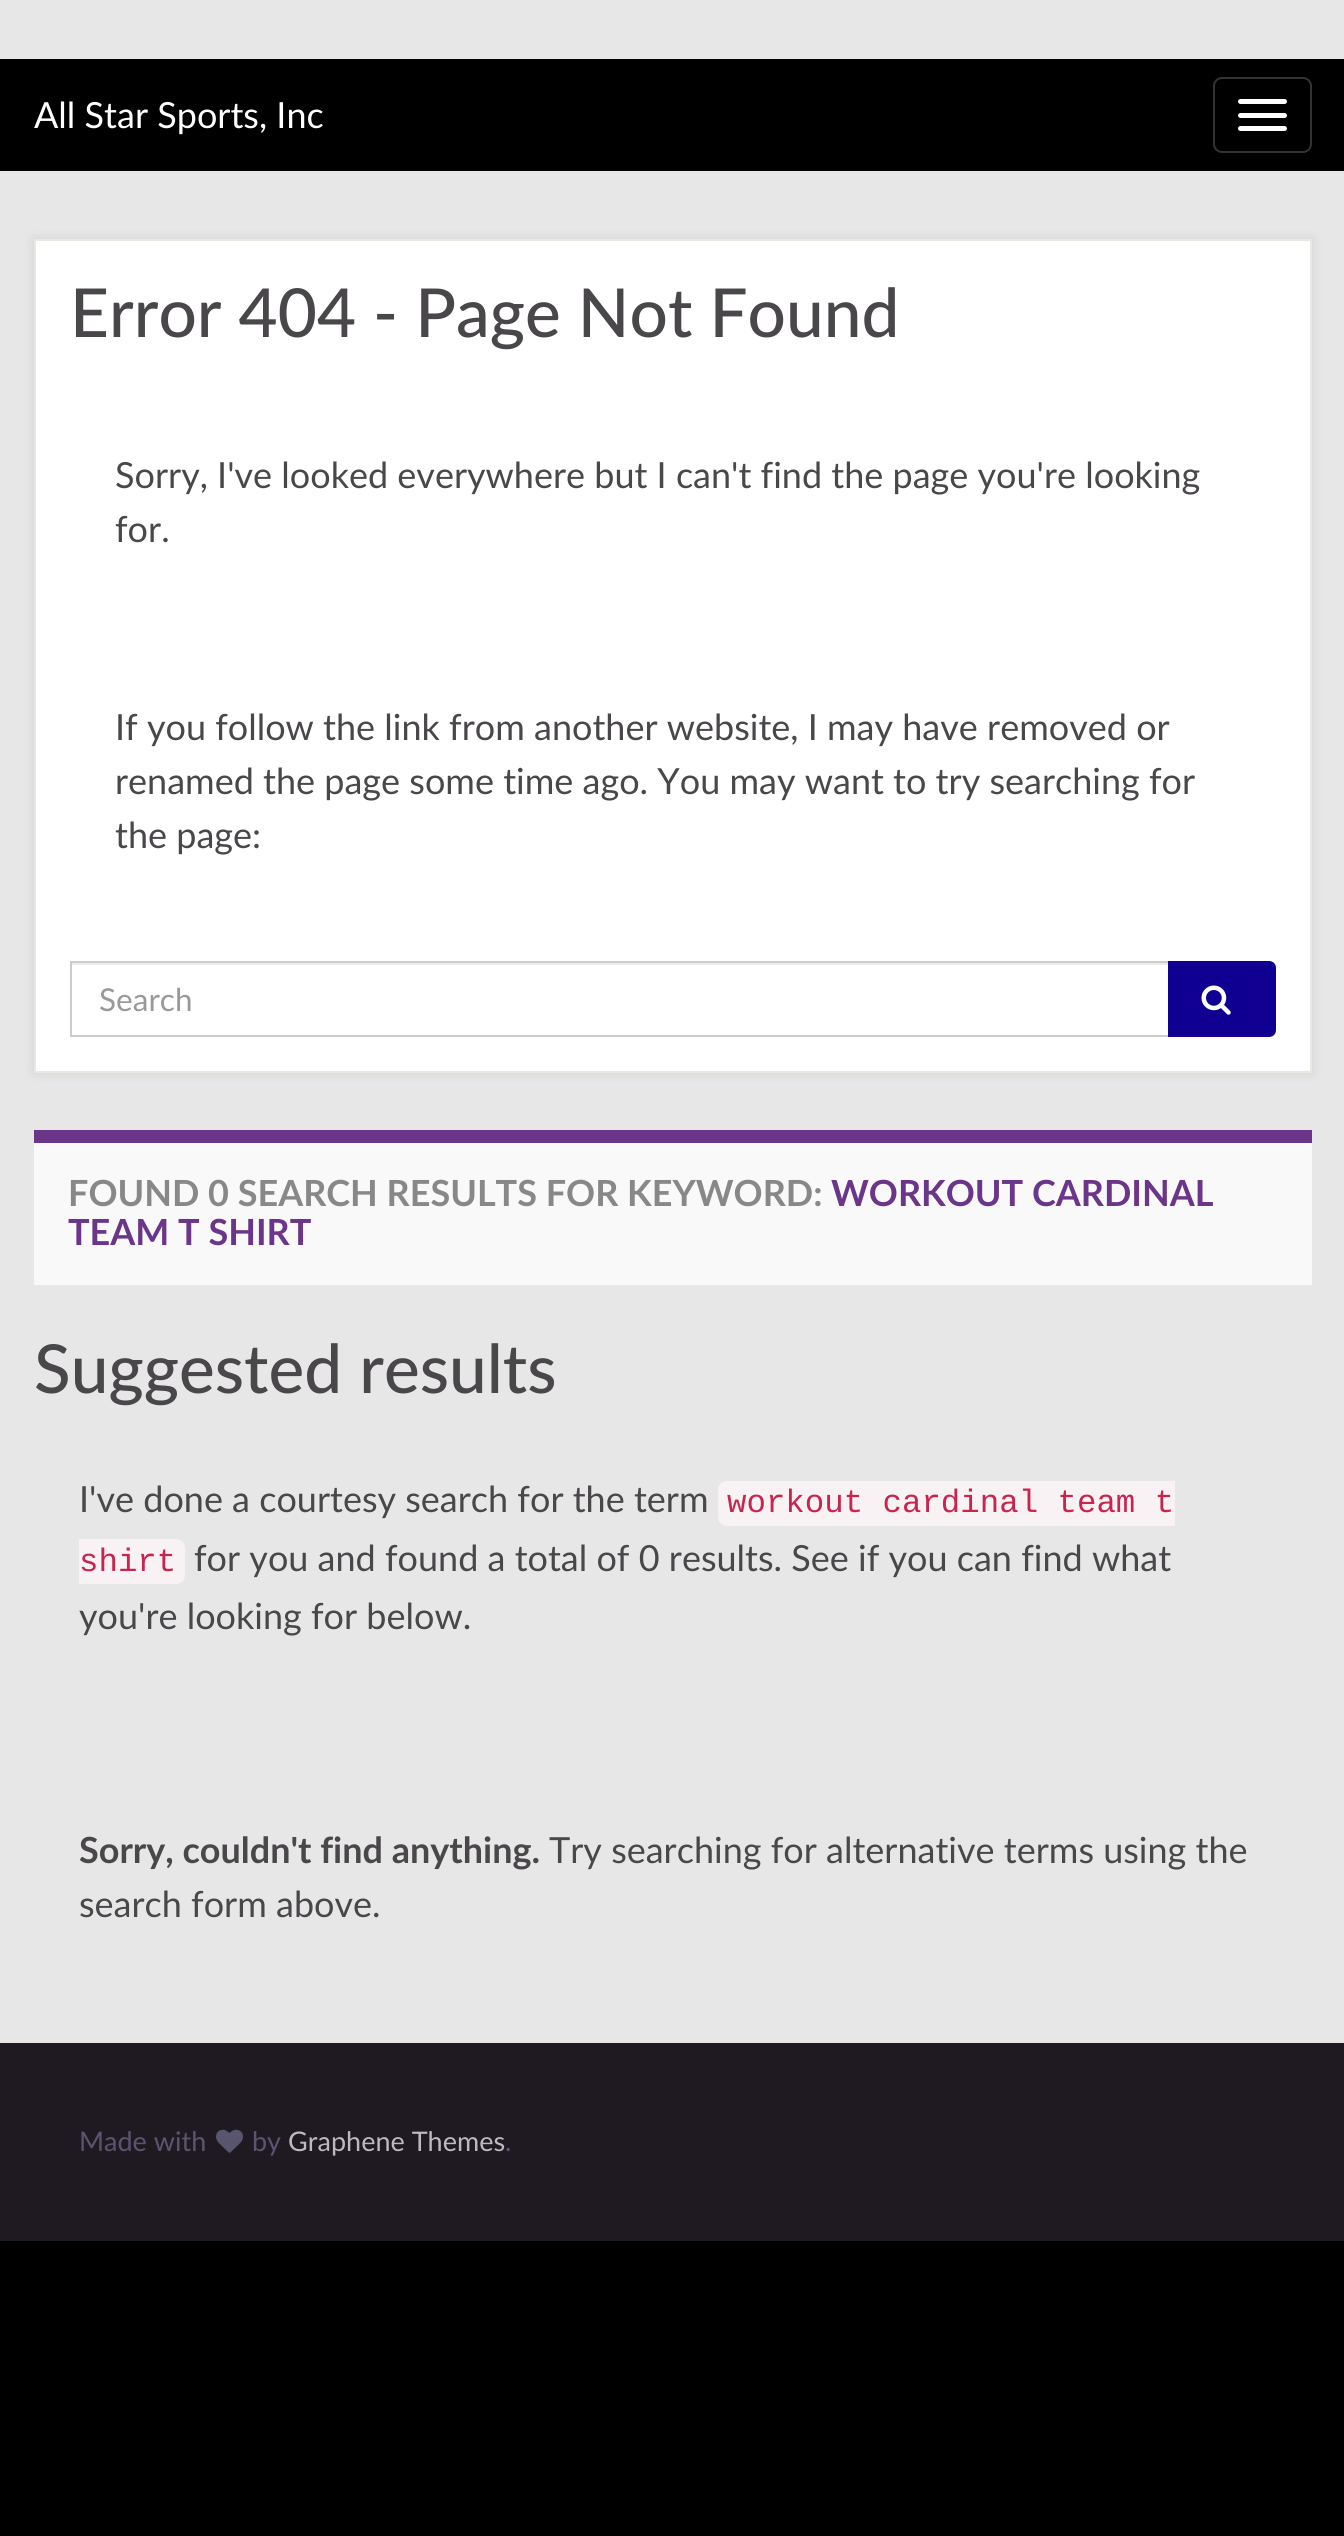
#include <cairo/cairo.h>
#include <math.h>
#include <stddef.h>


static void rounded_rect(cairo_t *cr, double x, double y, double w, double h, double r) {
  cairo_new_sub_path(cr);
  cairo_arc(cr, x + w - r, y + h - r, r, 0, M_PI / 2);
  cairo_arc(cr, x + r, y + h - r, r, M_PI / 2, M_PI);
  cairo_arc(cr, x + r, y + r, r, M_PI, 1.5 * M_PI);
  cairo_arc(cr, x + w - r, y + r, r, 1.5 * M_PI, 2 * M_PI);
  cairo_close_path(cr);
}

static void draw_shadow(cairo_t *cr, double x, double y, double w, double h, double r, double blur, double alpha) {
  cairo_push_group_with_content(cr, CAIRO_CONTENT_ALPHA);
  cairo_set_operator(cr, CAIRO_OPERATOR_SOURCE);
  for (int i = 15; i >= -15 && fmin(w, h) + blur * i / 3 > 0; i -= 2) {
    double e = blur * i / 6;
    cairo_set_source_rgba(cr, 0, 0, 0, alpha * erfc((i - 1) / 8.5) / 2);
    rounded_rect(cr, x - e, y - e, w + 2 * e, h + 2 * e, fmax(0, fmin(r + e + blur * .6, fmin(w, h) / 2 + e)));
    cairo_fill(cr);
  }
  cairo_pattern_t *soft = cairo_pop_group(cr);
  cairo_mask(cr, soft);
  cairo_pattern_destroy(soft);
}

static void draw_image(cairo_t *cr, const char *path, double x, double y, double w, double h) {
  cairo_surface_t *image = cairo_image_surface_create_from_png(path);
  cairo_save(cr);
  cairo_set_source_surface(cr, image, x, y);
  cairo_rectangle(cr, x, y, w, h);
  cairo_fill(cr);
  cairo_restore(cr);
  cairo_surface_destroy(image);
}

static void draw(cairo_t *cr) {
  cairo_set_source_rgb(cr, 0, 0, 0);
  cairo_paint(cr);
  cairo_set_source_rgb(cr, 231 / 255.0, 231 / 255.0, 231 / 255.0);
  cairo_rectangle(cr, 0, 0, 1344, 59);
  cairo_fill(cr);
  rounded_rect(cr, 1214, 78, 97, 74, 8);
  cairo_set_source_rgb(cr, 51 / 255.0, 51 / 255.0, 51 / 255.0);
  cairo_stroke(cr);
  cairo_set_source_rgb(cr, 1, 1, 1);
  rounded_rect(cr, 1238, 99, 49, 5, 2.5);
  cairo_fill(cr);
  rounded_rect(cr, 1238, 113, 49, 5, 2.5);
  cairo_fill(cr);
  rounded_rect(cr, 1238, 126, 49, 5, 2.5);
  cairo_fill(cr);
  cairo_set_source_rgb(cr, 231 / 255.0, 231 / 255.0, 231 / 255.0);
  cairo_rectangle(cr, 0, 171, 1344, 1872);
  cairo_fill(cr);
  cairo_set_source_rgb(cr, 0, 0, 0);
  draw_shadow(cr, 34, 239, 1278, 834, 0, 5.5, 0.1);
  cairo_set_source_rgb(cr, 1, 1, 1);
  cairo_rectangle(cr, 35, 240, 1276, 832);
  cairo_fill_preserve(cr);
  cairo_set_source_rgb(cr, 233 / 255.0, 232 / 255.0, 227 / 255.0);
  cairo_stroke(cr);
  cairo_set_source_rgb(cr, 236 / 255.0, 236 / 255.0, 236 / 255.0);
  cairo_rectangle(cr, 72, 963, 1096, 2);
  cairo_fill(cr);
  cairo_rectangle(cr, 71, 962, 1098, 74);
  cairo_set_source_rgb(cr, 204 / 255.0, 204 / 255.0, 204 / 255.0);
  cairo_stroke(cr);
  cairo_set_source_rgb(cr, 16 / 255.0, 0, 145 / 255.0);
  cairo_new_path(cr);
  cairo_move_to(cr, 1168, 961);
  cairo_line_to(cr, 1269, 961);
  cairo_curve_to(cr, 1273, 961, 1276, 964, 1276, 968);
  cairo_line_to(cr, 1276, 1030);
  cairo_curve_to(cr, 1276, 1034, 1273, 1037, 1269, 1037);
  cairo_line_to(cr, 1168, 1037);
  cairo_close_path(cr);
  cairo_fill(cr);
  draw_image(cr, "images/1.png", 1201, 985, 30, 30);
  cairo_set_source_rgb(cr, 249 / 255.0, 249 / 255.0, 249 / 255.0);
  cairo_rectangle(cr, 34, 1143, 1278, 142);
  cairo_fill(cr);
  cairo_set_source_rgb(cr, 107 / 255.0, 53 / 255.0, 137 / 255.0);
  cairo_rectangle(cr, 34, 1130, 1278, 13);
  cairo_fill(cr);
  cairo_set_source_rgb(cr, 249 / 255.0, 242 / 255.0, 244 / 255.0);
  cairo_new_path(cr);
  cairo_move_to(cr, 727, 1481);
  cairo_line_to(cr, 1175, 1481);
  cairo_line_to(cr, 1175, 1526);
  cairo_line_to(cr, 727, 1526);
  cairo_curve_to(cr, 722, 1526, 718, 1522, 718, 1517);
  cairo_line_to(cr, 718, 1490);
  cairo_curve_to(cr, 718, 1485, 722, 1481, 727, 1481);
  cairo_close_path(cr);
  cairo_fill(cr);
  cairo_new_path(cr);
  cairo_move_to(cr, 79, 1539);
  cairo_line_to(cr, 176, 1539);
  cairo_curve_to(cr, 181, 1539, 185, 1543, 185, 1548);
  cairo_line_to(cr, 185, 1575);
  cairo_curve_to(cr, 185, 1580, 181, 1584, 176, 1584);
  cairo_line_to(cr, 79, 1584);
  cairo_close_path(cr);
  cairo_fill(cr);
  cairo_set_source_rgb(cr, 31 / 255.0, 26 / 255.0, 34 / 255.0);
  cairo_rectangle(cr, 0, 2043, 1344, 198);
  cairo_fill(cr);
  draw_image(cr, "images/2.png", 216, 2129, 27, 24);
  cairo_select_font_face(cr, "Lato", CAIRO_FONT_SLANT_NORMAL, CAIRO_FONT_WEIGHT_NORMAL);
  cairo_set_font_size(cr, 36);
  cairo_set_source_rgb(cr, 1, 1, 1);
  cairo_move_to(cr, 34, 128);
  cairo_show_text(cr, "All Star Sports, Inc");
  cairo_select_font_face(cr, "Lato Medium", CAIRO_FONT_SLANT_NORMAL, CAIRO_FONT_WEIGHT_NORMAL);
  cairo_set_font_size(cr, 67.5);
  cairo_set_source_rgb(cr, 74 / 255.0, 71 / 255.0, 75 / 255.0);
  cairo_move_to(cr, 70, 337);
  cairo_show_text(cr, "Error 404 - Page Not Found");
  cairo_select_font_face(cr, "Lato", CAIRO_FONT_SLANT_NORMAL, CAIRO_FONT_WEIGHT_NORMAL);
  cairo_set_font_size(cr, 36);
  cairo_move_to(cr, 115, 488);
  cairo_show_text(cr, "Sorry, I've looked everywhere but I can't find the page you're looking");
  cairo_move_to(cr, 115, 542);
  cairo_show_text(cr, "for.");
  cairo_move_to(cr, 115, 740);
  cairo_show_text(cr, "If you follow the link from another website, I may have removed or");
  cairo_move_to(cr, 115, 794);
  cairo_show_text(cr, "renamed the page some time ago. You may want to try searching for");
  cairo_move_to(cr, 115, 848);
  cairo_show_text(cr, "the page:");
  cairo_set_font_size(cr, 31.5);
  cairo_set_source_rgb(cr, 153 / 255.0, 153 / 255.0, 153 / 255.0);
  cairo_move_to(cr, 99, 1011);
  cairo_show_text(cr, "Search");
  cairo_select_font_face(cr, "Lato", CAIRO_FONT_SLANT_NORMAL, CAIRO_FONT_WEIGHT_BOLD);
  cairo_set_font_size(cr, 36);
  cairo_set_source_rgb(cr, 136 / 255.0, 136 / 255.0, 136 / 255.0);
  cairo_move_to(cr, 68, 1206);
  cairo_show_text(cr, "FOUND 0 SEARCH RESULTS FOR KEYWORD:");
  cairo_set_source_rgb(cr, 107 / 255.0, 53 / 255.0, 137 / 255.0);
  cairo_move_to(cr, 831, 1206);
  cairo_show_text(cr, "WORKOUT CARDINAL");
  cairo_move_to(cr, 68, 1245);
  cairo_show_text(cr, "TEAM T SHIRT");
  cairo_select_font_face(cr, "Lato Medium", CAIRO_FONT_SLANT_NORMAL, CAIRO_FONT_WEIGHT_NORMAL);
  cairo_set_font_size(cr, 67.5);
  cairo_set_source_rgb(cr, 74 / 255.0, 71 / 255.0, 75 / 255.0);
  cairo_move_to(cr, 34, 1393);
  cairo_show_text(cr, "Suggested results");
  cairo_select_font_face(cr, "Lato", CAIRO_FONT_SLANT_NORMAL, CAIRO_FONT_WEIGHT_NORMAL);
  cairo_set_font_size(cr, 36);
  cairo_move_to(cr, 79, 1512);
  cairo_show_text(cr, "I've done a courtesy search for the term");
  cairo_select_font_face(cr, "Liberation Mono", CAIRO_FONT_SLANT_NORMAL, CAIRO_FONT_WEIGHT_NORMAL);
  cairo_set_font_size(cr, 32.4);
  cairo_set_source_rgb(cr, 199 / 255.0, 37 / 255.0, 78 / 255.0);
  cairo_move_to(cr, 727, 1512);
  cairo_show_text(cr, "workout cardinal team t");
  cairo_move_to(cr, 79, 1571);
  cairo_show_text(cr, "shirt");
  cairo_select_font_face(cr, "Lato", CAIRO_FONT_SLANT_NORMAL, CAIRO_FONT_WEIGHT_NORMAL);
  cairo_set_font_size(cr, 36);
  cairo_set_source_rgb(cr, 74 / 255.0, 71 / 255.0, 75 / 255.0);
  cairo_move_to(cr, 194, 1571);
  cairo_show_text(cr, "for you and found a total of 0 results. See if you can find what");
  cairo_move_to(cr, 79, 1629);
  cairo_show_text(cr, "you're looking for below.");
  cairo_select_font_face(cr, "Lato", CAIRO_FONT_SLANT_NORMAL, CAIRO_FONT_WEIGHT_BOLD);
  cairo_move_to(cr, 79, 1863);
  cairo_show_text(cr, "Sorry, couldn't find anything.");
  cairo_select_font_face(cr, "Lato", CAIRO_FONT_SLANT_NORMAL, CAIRO_FONT_WEIGHT_NORMAL);
  cairo_move_to(cr, 549, 1863);
  cairo_show_text(cr, "Try searching for alternative terms using the");
  cairo_move_to(cr, 79, 1917);
  cairo_show_text(cr, "search form above.");
  cairo_set_font_size(cr, 27);
  cairo_set_source_rgb(cr, 89 / 255.0, 85 / 255.0, 112 / 255.0);
  cairo_move_to(cr, 79, 2151);
  cairo_show_text(cr, "Made with");
  cairo_move_to(cr, 252, 2151);
  cairo_show_text(cr, "by");
  cairo_set_source_rgb(cr, 188 / 255.0, 186 / 255.0, 189 / 255.0);
  cairo_move_to(cr, 288, 2151);
  cairo_show_text(cr, "Graphene Themes");
  cairo_set_source_rgb(cr, 89 / 255.0, 85 / 255.0, 112 / 255.0);
  cairo_move_to(cr, 505, 2151);
  cairo_show_text(cr, ".");
}

int main(void) {
  cairo_surface_t *surface = cairo_image_surface_create(CAIRO_FORMAT_RGB24, 1344, 2536);
  cairo_t *cr = cairo_create(surface);
  cairo_font_options_t *options = cairo_font_options_create();
  cairo_font_options_set_hint_metrics(options, CAIRO_HINT_METRICS_OFF);
  cairo_font_options_set_hint_style(options, CAIRO_HINT_STYLE_NONE);
  cairo_set_font_options(cr, options);
  cairo_set_miter_limit(cr, 4);
  draw(cr);
  cairo_surface_write_to_png(surface, "out.png");
  cairo_font_options_destroy(options);
  cairo_destroy(cr);
  cairo_surface_destroy(surface);
  return 0;
}
